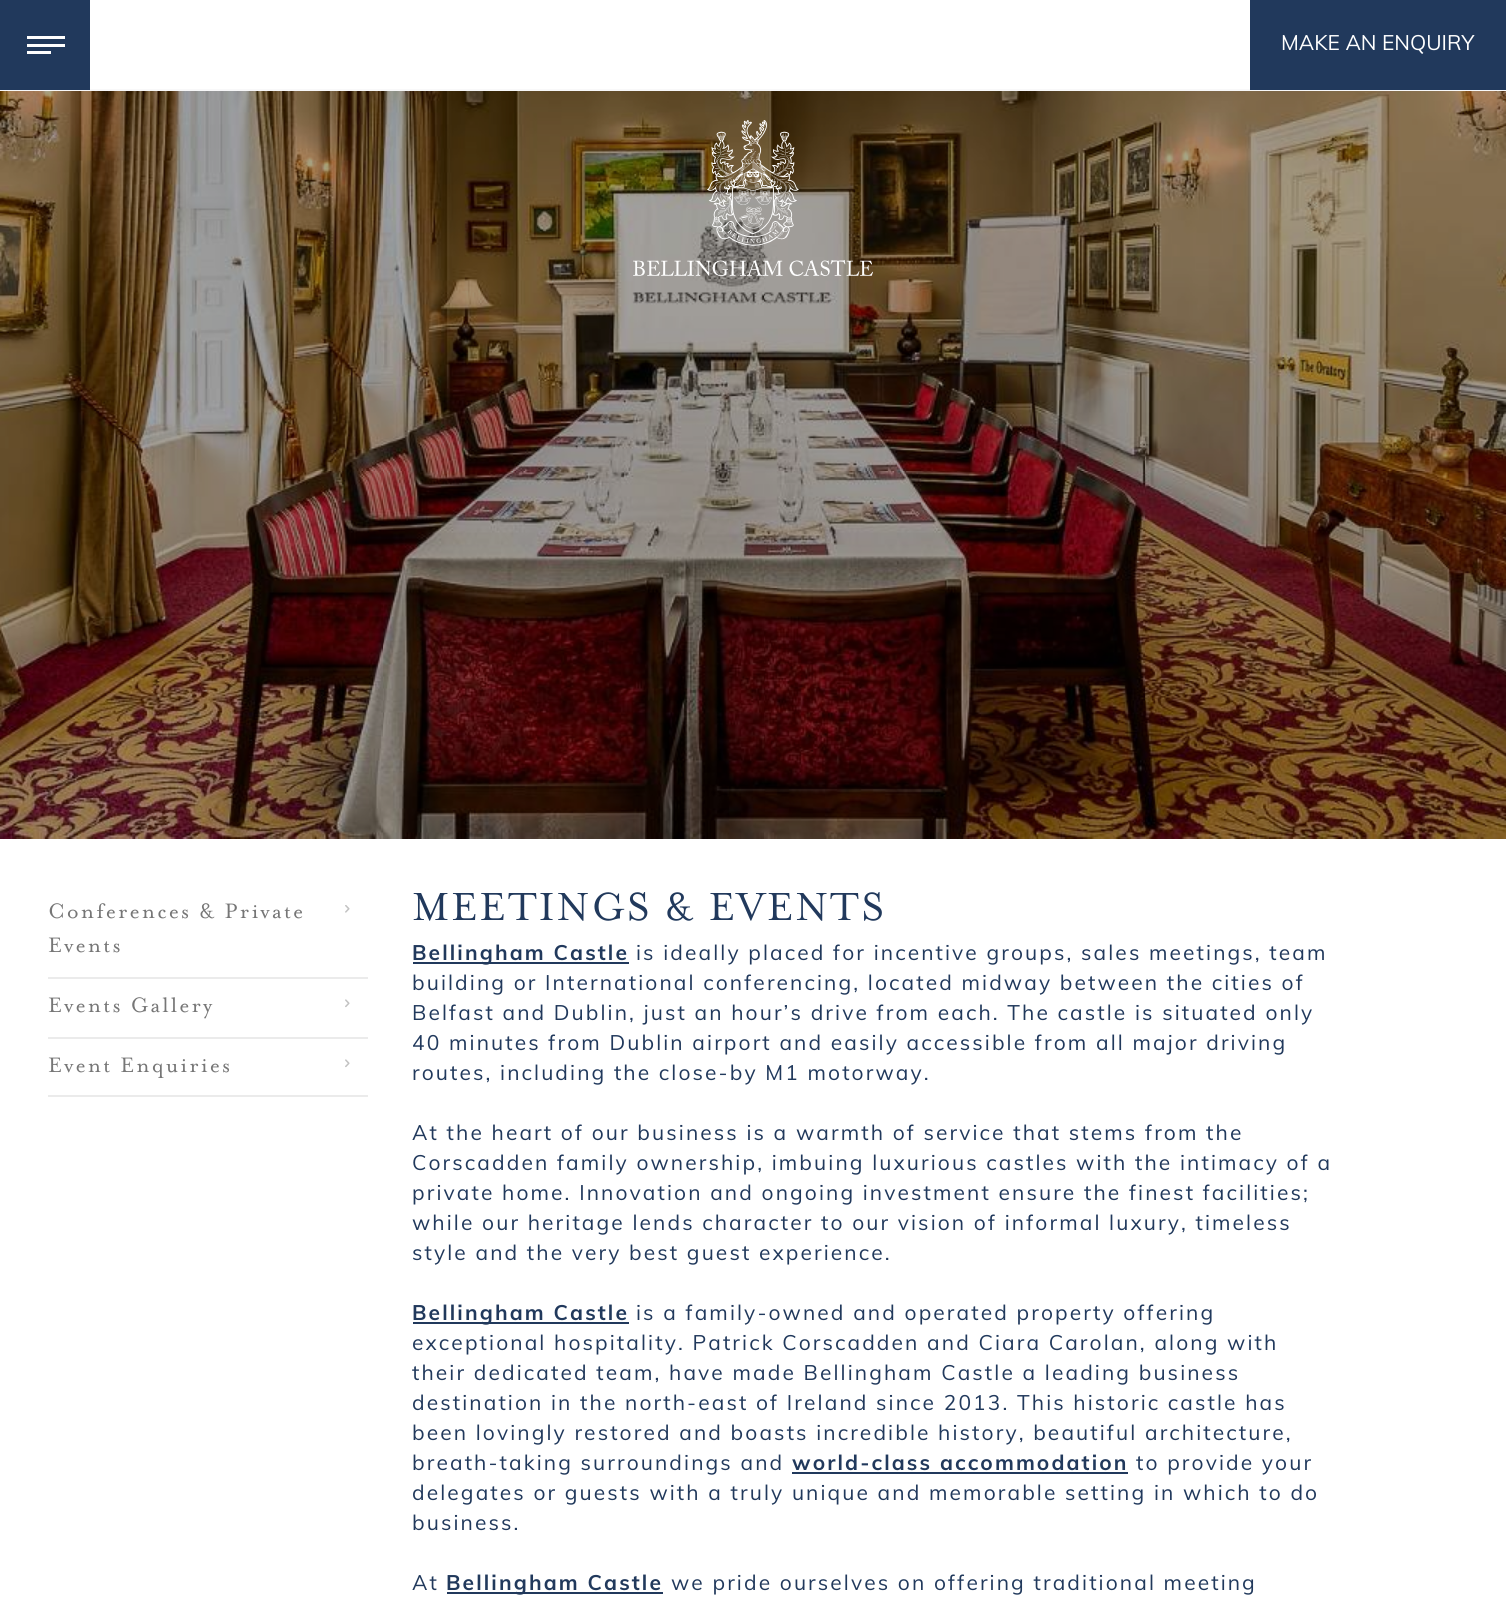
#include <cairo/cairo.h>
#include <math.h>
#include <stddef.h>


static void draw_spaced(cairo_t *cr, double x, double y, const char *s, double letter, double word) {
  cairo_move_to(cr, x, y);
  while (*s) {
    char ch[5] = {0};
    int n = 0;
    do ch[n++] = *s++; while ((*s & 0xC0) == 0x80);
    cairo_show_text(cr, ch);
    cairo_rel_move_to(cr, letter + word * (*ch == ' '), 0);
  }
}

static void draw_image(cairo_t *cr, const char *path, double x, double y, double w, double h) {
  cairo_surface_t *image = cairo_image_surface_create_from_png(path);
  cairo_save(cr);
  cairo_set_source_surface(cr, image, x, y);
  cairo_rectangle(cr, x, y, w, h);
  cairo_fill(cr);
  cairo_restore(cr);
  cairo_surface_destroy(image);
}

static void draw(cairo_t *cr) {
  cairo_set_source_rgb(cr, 1, 1, 1);
  cairo_paint(cr);
  cairo_set_source_rgb(cr, 248 / 255.0, 248 / 255.0, 249 / 255.0);
  cairo_rectangle(cr, 0, 89, 1506, 2);
  cairo_fill(cr);
  cairo_set_source_rgb(cr, 33 / 255.0, 57 / 255.0, 92 / 255.0);
  cairo_rectangle(cr, 0, 0, 90, 90);
  cairo_fill(cr);
  cairo_set_source_rgb(cr, 1, 1, 1);
  cairo_rectangle(cr, 27, 36, 38, 3);
  cairo_fill(cr);
  cairo_rectangle(cr, 27, 44, 38, 3);
  cairo_fill(cr);
  cairo_rectangle(cr, 27, 51, 24, 3);
  cairo_fill(cr);
  cairo_set_source_rgb(cr, 33 / 255.0, 57 / 255.0, 92 / 255.0);
  cairo_rectangle(cr, 1250, 0, 256, 90);
  cairo_fill(cr);
  draw_image(cr, "images/1.png", 0, 91, 1506, 748);
  draw_image(cr, "images/2.png", 633, 120, 240, 156);
  cairo_set_source_rgb(cr, 235 / 255.0, 235 / 255.0, 235 / 255.0);
  cairo_rectangle(cr, 48, 977, 320, 2);
  cairo_fill(cr);
  draw_image(cr, "images/3.png", 345, 905, 5, 8);
  cairo_rectangle(cr, 48, 1037, 320, 2);
  cairo_fill(cr);
  draw_image(cr, "images/4.png", 345, 999, 5, 9);
  cairo_rectangle(cr, 48, 1095, 320, 2);
  cairo_fill(cr);
  draw_image(cr, "images/4.png", 345, 1059, 5, 9);
  cairo_set_source_rgb(cr, 33 / 255.0, 57 / 255.0, 92 / 255.0);
  cairo_rectangle(cr, 413, 962, 216, 2);
  cairo_fill(cr);
  cairo_rectangle(cr, 413, 1322, 216, 2);
  cairo_fill(cr);
  cairo_rectangle(cr, 792, 1472, 336, 2);
  cairo_fill(cr);
  cairo_rectangle(cr, 447, 1592, 216, 2);
  cairo_fill(cr);
  cairo_select_font_face(cr, "Muli", CAIRO_FONT_SLANT_NORMAL, CAIRO_FONT_WEIGHT_NORMAL);
  cairo_set_font_size(cr, 21);
  cairo_set_source_rgb(cr, 1, 1, 1);
  cairo_move_to(cr, 1281, 50);
  cairo_show_text(cr, "MAKE AN ENQUIRY");
  cairo_select_font_face(cr, "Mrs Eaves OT", CAIRO_FONT_SLANT_NORMAL, CAIRO_FONT_WEIGHT_NORMAL);
  cairo_set_font_size(cr, 24);
  cairo_set_source_rgb(cr, 118 / 255.0, 118 / 255.0, 118 / 255.0);
  draw_spaced(cr, 48, 918, "Conferences & Private", 2.1, 0);
  draw_spaced(cr, 48, 952, "Events", 2.1, 0);
  draw_spaced(cr, 48, 1012, "Events Gallery", 2.1, 0);
  draw_spaced(cr, 48, 1072, "Event Enquiries", 2.1, 0);
  cairo_set_font_size(cr, 45);
  cairo_set_source_rgb(cr, 33 / 255.0, 57 / 255.0, 92 / 255.0);
  draw_spaced(cr, 412, 920, "MEETINGS & EVENTS", 2.1, 0);
  cairo_select_font_face(cr, "Muli", CAIRO_FONT_SLANT_NORMAL, CAIRO_FONT_WEIGHT_BOLD);
  cairo_set_font_size(cr, 21);
  draw_spaced(cr, 412, 960, "Bellingham Castle", 2.1, 0);
  cairo_select_font_face(cr, "Muli", CAIRO_FONT_SLANT_NORMAL, CAIRO_FONT_WEIGHT_NORMAL);
  draw_spaced(cr, 636, 960, "is ideally placed for incentive groups, sales meetings, team", 2.1, 0);
  draw_spaced(cr, 412, 990, "building or International conferencing, located midway between the cities of", 2.1, 0);
  draw_spaced(cr, 412, 1020, "Belfast and Dublin, just an hour’s drive from each. The castle is situated only", 2.1, 0);
  draw_spaced(cr, 412, 1050, "40 minutes from Dublin airport and easily accessible from all major driving", 2.1, 0);
  draw_spaced(cr, 412, 1080, "routes, including the close-by M1 motorway.", 2.1, 0);
  draw_spaced(cr, 412, 1140, "At the heart of our business is a warmth of service that stems from the", 2.1, 0);
  draw_spaced(cr, 412, 1170, "Corscadden family ownership, imbuing luxurious castles with the intimacy of a", 2.1, 0);
  draw_spaced(cr, 412, 1200, "private home. Innovation and ongoing investment ensure the finest facilities;", 2.1, 0);
  draw_spaced(cr, 412, 1230, "while our heritage lends character to our vision of informal luxury, timeless", 2.1, 0);
  draw_spaced(cr, 412, 1260, "style and the very best guest experience.", 2.1, 0);
  cairo_select_font_face(cr, "Muli", CAIRO_FONT_SLANT_NORMAL, CAIRO_FONT_WEIGHT_BOLD);
  draw_spaced(cr, 412, 1320, "Bellingham Castle", 2.1, 0);
  cairo_select_font_face(cr, "Muli", CAIRO_FONT_SLANT_NORMAL, CAIRO_FONT_WEIGHT_NORMAL);
  draw_spaced(cr, 636, 1320, "is a family-owned and operated property offering", 2.1, 0);
  draw_spaced(cr, 412, 1350, "exceptional hospitality. Patrick Corscadden and Ciara Carolan, along with", 2.1, 0);
  draw_spaced(cr, 412, 1380, "their dedicated team, have made Bellingham Castle a leading business", 2.1, 0);
  draw_spaced(cr, 412, 1410, "destination in the north-east of Ireland since 2013. This historic castle has", 2.1, 0);
  draw_spaced(cr, 412, 1440, "been lovingly restored and boasts incredible history, beautiful architecture,", 2.1, 0);
  draw_spaced(cr, 412, 1470, "breath-taking surroundings and", 2.1, 0);
  cairo_select_font_face(cr, "Muli", CAIRO_FONT_SLANT_NORMAL, CAIRO_FONT_WEIGHT_BOLD);
  draw_spaced(cr, 792, 1470, "world-class accommodation", 2.1, 0);
  cairo_select_font_face(cr, "Muli", CAIRO_FONT_SLANT_NORMAL, CAIRO_FONT_WEIGHT_NORMAL);
  draw_spaced(cr, 1136, 1470, "to provide your", 2.1, 0);
  draw_spaced(cr, 412, 1500, "delegates or guests with a truly unique and memorable setting in which to do", 2.1, 0);
  draw_spaced(cr, 412, 1530, "business.", 2.1, 0);
  draw_spaced(cr, 412, 1590, "At", 2.1, 0);
  cairo_select_font_face(cr, "Muli", CAIRO_FONT_SLANT_NORMAL, CAIRO_FONT_WEIGHT_BOLD);
  draw_spaced(cr, 446, 1590, "Bellingham Castle", 2.1, 0);
  cairo_select_font_face(cr, "Muli", CAIRO_FONT_SLANT_NORMAL, CAIRO_FONT_WEIGHT_NORMAL);
  draw_spaced(cr, 671, 1590, "we pride ourselves on offering traditional meeting", 2.1, 0);
}

int main(void) {
  cairo_surface_t *surface = cairo_image_surface_create(CAIRO_FORMAT_RGB24, 1506, 1608);
  cairo_t *cr = cairo_create(surface);
  cairo_font_options_t *options = cairo_font_options_create();
  cairo_font_options_set_hint_metrics(options, CAIRO_HINT_METRICS_OFF);
  cairo_font_options_set_hint_style(options, CAIRO_HINT_STYLE_NONE);
  cairo_set_font_options(cr, options);
  cairo_set_miter_limit(cr, 4);
  draw(cr);
  cairo_surface_write_to_png(surface, "out.png");
  cairo_font_options_destroy(options);
  cairo_destroy(cr);
  cairo_surface_destroy(surface);
  return 0;
}
